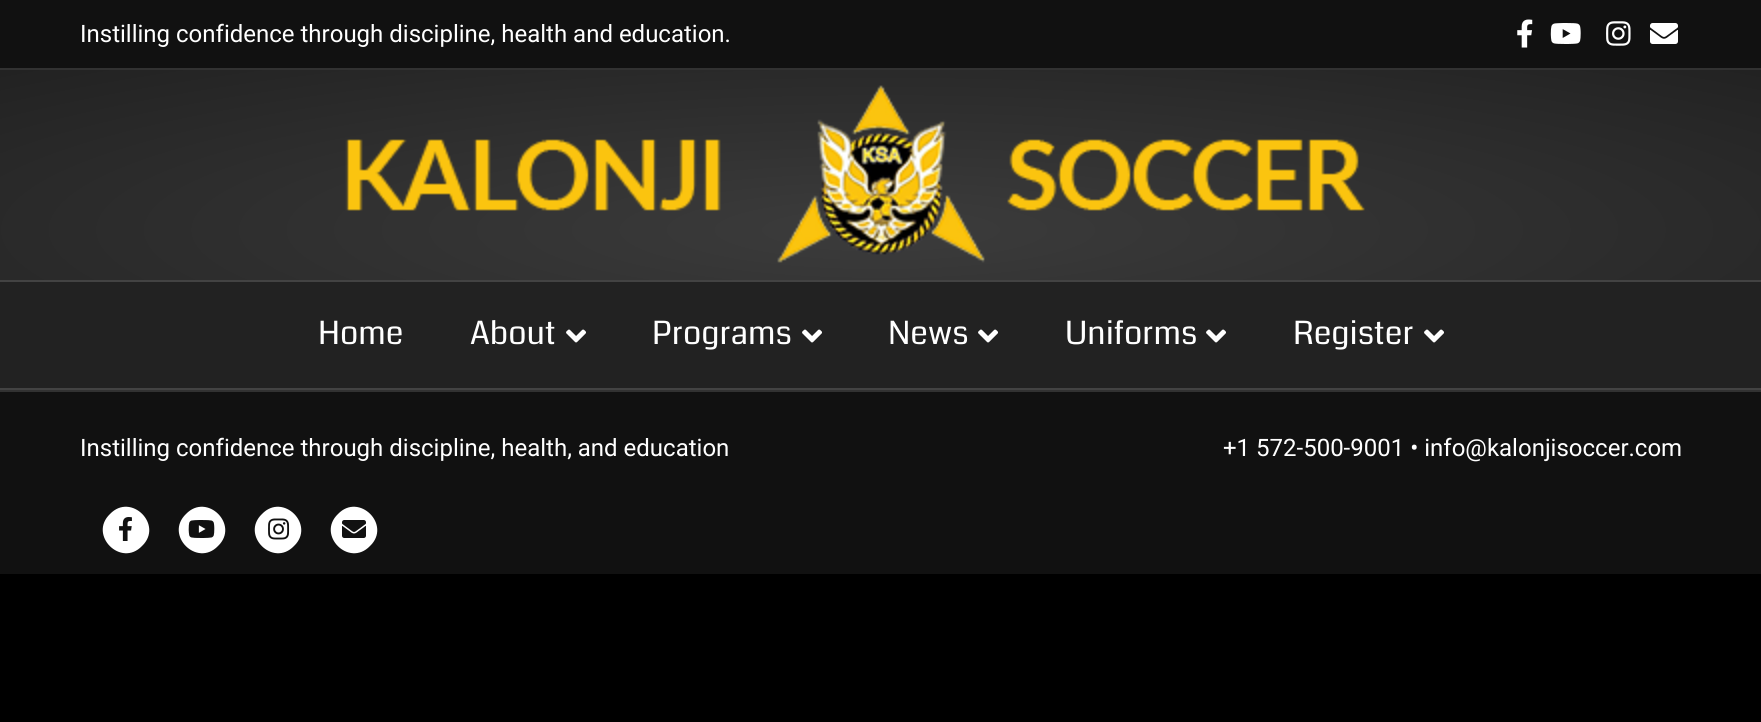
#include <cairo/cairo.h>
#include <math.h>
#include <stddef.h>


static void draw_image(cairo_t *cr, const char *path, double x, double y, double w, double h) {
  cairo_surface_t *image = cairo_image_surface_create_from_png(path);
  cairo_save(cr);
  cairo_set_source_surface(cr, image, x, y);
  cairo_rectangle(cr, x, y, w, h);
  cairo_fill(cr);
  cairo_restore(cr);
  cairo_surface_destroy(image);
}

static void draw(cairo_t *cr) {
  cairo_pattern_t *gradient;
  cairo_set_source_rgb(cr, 0, 0, 0);
  cairo_paint(cr);
  cairo_set_source_rgb(cr, 17 / 255.0, 17 / 255.0, 17 / 255.0);
  cairo_rectangle(cr, 0, 0, 1761, 68);
  cairo_fill(cr);
  cairo_set_source_rgb(cr, 50 / 255.0, 50 / 255.0, 50 / 255.0);
  cairo_rectangle(cr, 0, 68, 1761, 2);
  cairo_fill(cr);
  draw_image(cr, "images/1.png", 1517, 19, 16, 29);
  draw_image(cr, "images/2.png", 1550, 23, 31, 21);
  draw_image(cr, "images/3.png", 1606, 21, 25, 25);
  draw_image(cr, "images/4.png", 1650, 23, 28, 21);
  gradient = cairo_pattern_create_radial(0, 0, 0, 0, 0, 1);
  cairo_pattern_set_matrix(gradient, &(cairo_matrix_t){1.0 / 1246, 0, 0, 1.0 / 226, -1.0 * 881 / 1246, -1.0 * 230 / 226});
  cairo_pattern_add_color_stop_rgba(gradient, 0, 60 / 255.0, 60 / 255.0, 60 / 255.0, 1);
  cairo_pattern_add_color_stop_rgba(gradient, 1, 34 / 255.0, 34 / 255.0, 34 / 255.0, 1);
  cairo_set_source(cr, gradient);
  cairo_pattern_destroy(gradient);
  cairo_rectangle(cr, 0, 70, 1761, 210);
  cairo_fill(cr);
  draw_image(cr, "images/5.png", 345, 85, 1020, 178);
  cairo_set_source_rgb(cr, 34 / 255.0, 34 / 255.0, 34 / 255.0);
  cairo_rectangle(cr, 0, 282, 1761, 106);
  cairo_fill(cr);
  cairo_set_source_rgb(cr, 67 / 255.0, 67 / 255.0, 67 / 255.0);
  cairo_rectangle(cr, 0, 280, 1761, 2);
  cairo_fill(cr);
  cairo_rectangle(cr, 0, 388, 1761, 2);
  cairo_fill(cr);
  draw_image(cr, "images/6.png", 566, 329, 20, 14);
  draw_image(cr, "images/6.png", 802, 329, 20, 14);
  draw_image(cr, "images/6.png", 978, 329, 20, 14);
  draw_image(cr, "images/6.png", 1206, 329, 20, 14);
  draw_image(cr, "images/6.png", 1424, 329, 20, 14);
  cairo_set_source_rgb(cr, 17 / 255.0, 17 / 255.0, 17 / 255.0);
  cairo_rectangle(cr, 0, 392, 1761, 182);
  cairo_fill(cr);
  cairo_set_source_rgb(cr, 50 / 255.0, 50 / 255.0, 50 / 255.0);
  cairo_rectangle(cr, 0, 390, 1761, 2);
  cairo_fill(cr);
  cairo_set_source_rgb(cr, 1, 1, 1);
  cairo_new_path(cr);
  cairo_move_to(cr, 110, 514);
  cairo_curve_to(cr, 131, 492, 164, 525, 142, 546);
  cairo_curve_to(cr, 121, 568, 88, 535, 110, 514);
  cairo_close_path(cr);
  cairo_fill(cr);
  draw_image(cr, "images/7.png", 119, 517, 13, 24);
  cairo_new_path(cr);
  cairo_move_to(cr, 186, 514);
  cairo_curve_to(cr, 207, 492, 240, 525, 218, 546);
  cairo_curve_to(cr, 197, 568, 164, 535, 186, 514);
  cairo_close_path(cr);
  cairo_fill(cr);
  draw_image(cr, "images/8.png", 188, 520, 27, 18);
  cairo_new_path(cr);
  cairo_move_to(cr, 262, 514);
  cairo_curve_to(cr, 283, 492, 316, 525, 294, 546);
  cairo_curve_to(cr, 273, 568, 240, 535, 262, 514);
  cairo_close_path(cr);
  cairo_fill(cr);
  draw_image(cr, "images/9.png", 268, 518, 22, 22);
  cairo_new_path(cr);
  cairo_move_to(cr, 338, 514);
  cairo_curve_to(cr, 359, 492, 392, 525, 370, 546);
  cairo_curve_to(cr, 349, 568, 316, 535, 338, 514);
  cairo_close_path(cr);
  cairo_fill(cr);
  draw_image(cr, "images/10.png", 342, 520, 24, 18);
  cairo_select_font_face(cr, "Roboto", CAIRO_FONT_SLANT_NORMAL, CAIRO_FONT_WEIGHT_NORMAL);
  cairo_set_font_size(cr, 24);
  cairo_move_to(cr, 80, 42);
  cairo_show_text(cr, "Instilling confidence through discipline, health and education.");
  cairo_select_font_face(cr, "Coda", CAIRO_FONT_SLANT_NORMAL, CAIRO_FONT_WEIGHT_NORMAL);
  cairo_set_font_size(cr, 32);
  cairo_move_to(cr, 318, 344);
  cairo_show_text(cr, "Home");
  cairo_move_to(cr, 470, 344);
  cairo_show_text(cr, "About");
  cairo_move_to(cr, 652, 344);
  cairo_show_text(cr, "Programs");
  cairo_move_to(cr, 888, 344);
  cairo_show_text(cr, "News");
  cairo_move_to(cr, 1065, 344);
  cairo_show_text(cr, "Uniforms");
  cairo_move_to(cr, 1293, 344);
  cairo_show_text(cr, "Register");
  cairo_select_font_face(cr, "Roboto", CAIRO_FONT_SLANT_NORMAL, CAIRO_FONT_WEIGHT_NORMAL);
  cairo_set_font_size(cr, 24);
  cairo_move_to(cr, 80, 456);
  cairo_show_text(cr, "Instilling confidence through discipline, health, and education");
  cairo_move_to(cr, 1223, 456);
  cairo_show_text(cr, "+1 572-500-9001 • info@kalonjisoccer.com");
}

int main(void) {
  cairo_surface_t *surface = cairo_image_surface_create(CAIRO_FORMAT_RGB24, 1761, 722);
  cairo_t *cr = cairo_create(surface);
  cairo_font_options_t *options = cairo_font_options_create();
  cairo_font_options_set_hint_metrics(options, CAIRO_HINT_METRICS_OFF);
  cairo_font_options_set_hint_style(options, CAIRO_HINT_STYLE_NONE);
  cairo_set_font_options(cr, options);
  cairo_set_miter_limit(cr, 4);
  draw(cr);
  cairo_surface_write_to_png(surface, "out.png");
  cairo_font_options_destroy(options);
  cairo_destroy(cr);
  cairo_surface_destroy(surface);
  return 0;
}
